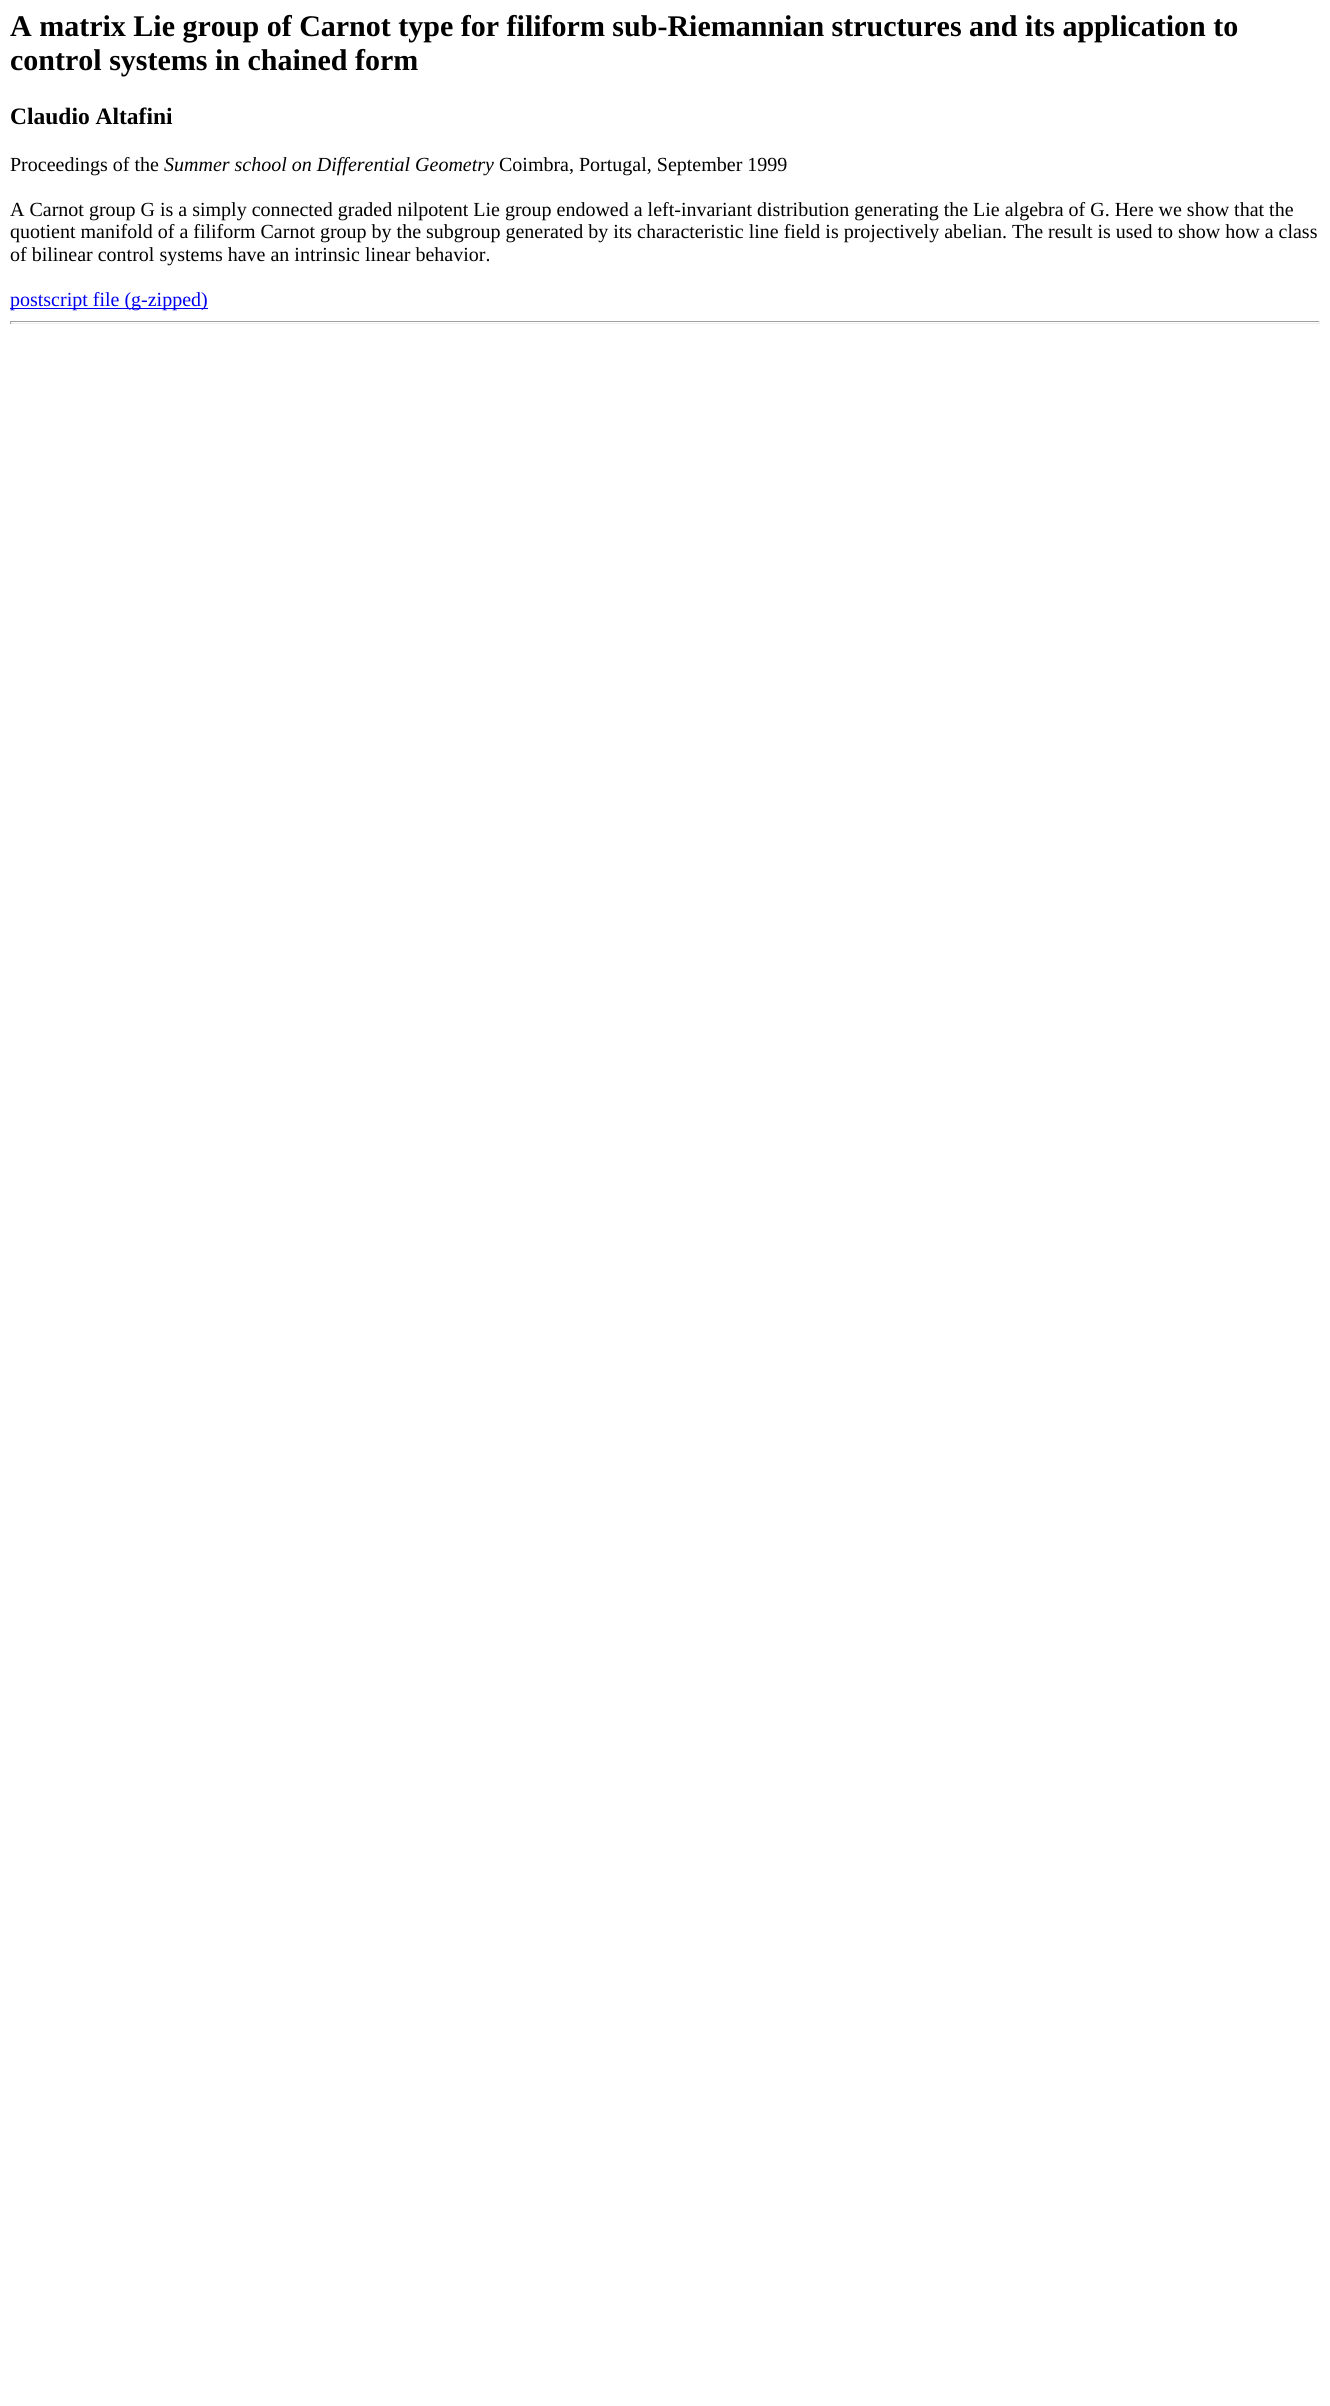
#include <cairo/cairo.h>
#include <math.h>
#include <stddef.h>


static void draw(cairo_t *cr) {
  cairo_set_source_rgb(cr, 1, 1, 1);
  cairo_paint(cr);
  cairo_set_source_rgb(cr, 0, 0, 238 / 255.0);
  cairo_rectangle(cr, 10, 308, 198, 1);
  cairo_fill(cr);
  cairo_set_source_rgb(cr, 159 / 255.0, 159 / 255.0, 159 / 255.0);
  cairo_rectangle(cr, 10, 321, 1310, 1);
  cairo_fill(cr);
  cairo_set_source_rgb(cr, 238 / 255.0, 238 / 255.0, 238 / 255.0);
  cairo_rectangle(cr, 1319, 321, 1, 3);
  cairo_fill(cr);
  cairo_rectangle(cr, 10, 323, 1310, 1);
  cairo_fill(cr);
  cairo_set_source_rgb(cr, 159 / 255.0, 159 / 255.0, 159 / 255.0);
  cairo_rectangle(cr, 10, 321, 1, 3);
  cairo_fill(cr);
  cairo_select_font_face(cr, "Liberation Serif", CAIRO_FONT_SLANT_NORMAL, CAIRO_FONT_WEIGHT_BOLD);
  cairo_set_font_size(cr, 30);
  cairo_set_source_rgb(cr, 0, 0, 0);
  cairo_move_to(cr, 10, 36);
  cairo_show_text(cr, "A matrix Lie group of Carnot type for filiform sub-Riemannian structures and its application to");
  cairo_move_to(cr, 10, 70);
  cairo_show_text(cr, "control systems in chained form");
  cairo_set_font_size(cr, 23.5);
  cairo_move_to(cr, 10, 124);
  cairo_show_text(cr, "Claudio Altafini");
  cairo_select_font_face(cr, "Liberation Serif", CAIRO_FONT_SLANT_NORMAL, CAIRO_FONT_WEIGHT_NORMAL);
  cairo_set_font_size(cr, 20);
  cairo_move_to(cr, 10, 171);
  cairo_show_text(cr, "Proceedings of the");
  cairo_select_font_face(cr, "Liberation Serif", CAIRO_FONT_SLANT_ITALIC, CAIRO_FONT_WEIGHT_NORMAL);
  cairo_move_to(cr, 164, 171);
  cairo_show_text(cr, "Summer school on Differential Geometry");
  cairo_select_font_face(cr, "Liberation Serif", CAIRO_FONT_SLANT_NORMAL, CAIRO_FONT_WEIGHT_NORMAL);
  cairo_move_to(cr, 499, 171);
  cairo_show_text(cr, "Coimbra, Portugal, September 1999");
  cairo_move_to(cr, 10, 216);
  cairo_show_text(cr, "A Carnot group G is a simply connected graded nilpotent Lie group endowed a left-invariant distribution generating the Lie algebra of G. Here we show that the");
  cairo_move_to(cr, 10, 238);
  cairo_show_text(cr, "quotient manifold of a filiform Carnot group by the subgroup generated by its characteristic line field is projectively abelian. The result is used to show how a class");
  cairo_move_to(cr, 10, 261);
  cairo_show_text(cr, "of bilinear control systems have an intrinsic linear behavior.");
  cairo_set_source_rgb(cr, 0, 0, 238 / 255.0);
  cairo_move_to(cr, 10, 306);
  cairo_show_text(cr, "postscript file (g-zipped)");
}

int main(void) {
  cairo_surface_t *surface = cairo_image_surface_create(CAIRO_FORMAT_RGB24, 1330, 2406);
  cairo_t *cr = cairo_create(surface);
  cairo_font_options_t *options = cairo_font_options_create();
  cairo_font_options_set_hint_metrics(options, CAIRO_HINT_METRICS_OFF);
  cairo_font_options_set_hint_style(options, CAIRO_HINT_STYLE_NONE);
  cairo_set_font_options(cr, options);
  cairo_set_miter_limit(cr, 4);
  draw(cr);
  cairo_surface_write_to_png(surface, "out.png");
  cairo_font_options_destroy(options);
  cairo_destroy(cr);
  cairo_surface_destroy(surface);
  return 0;
}
